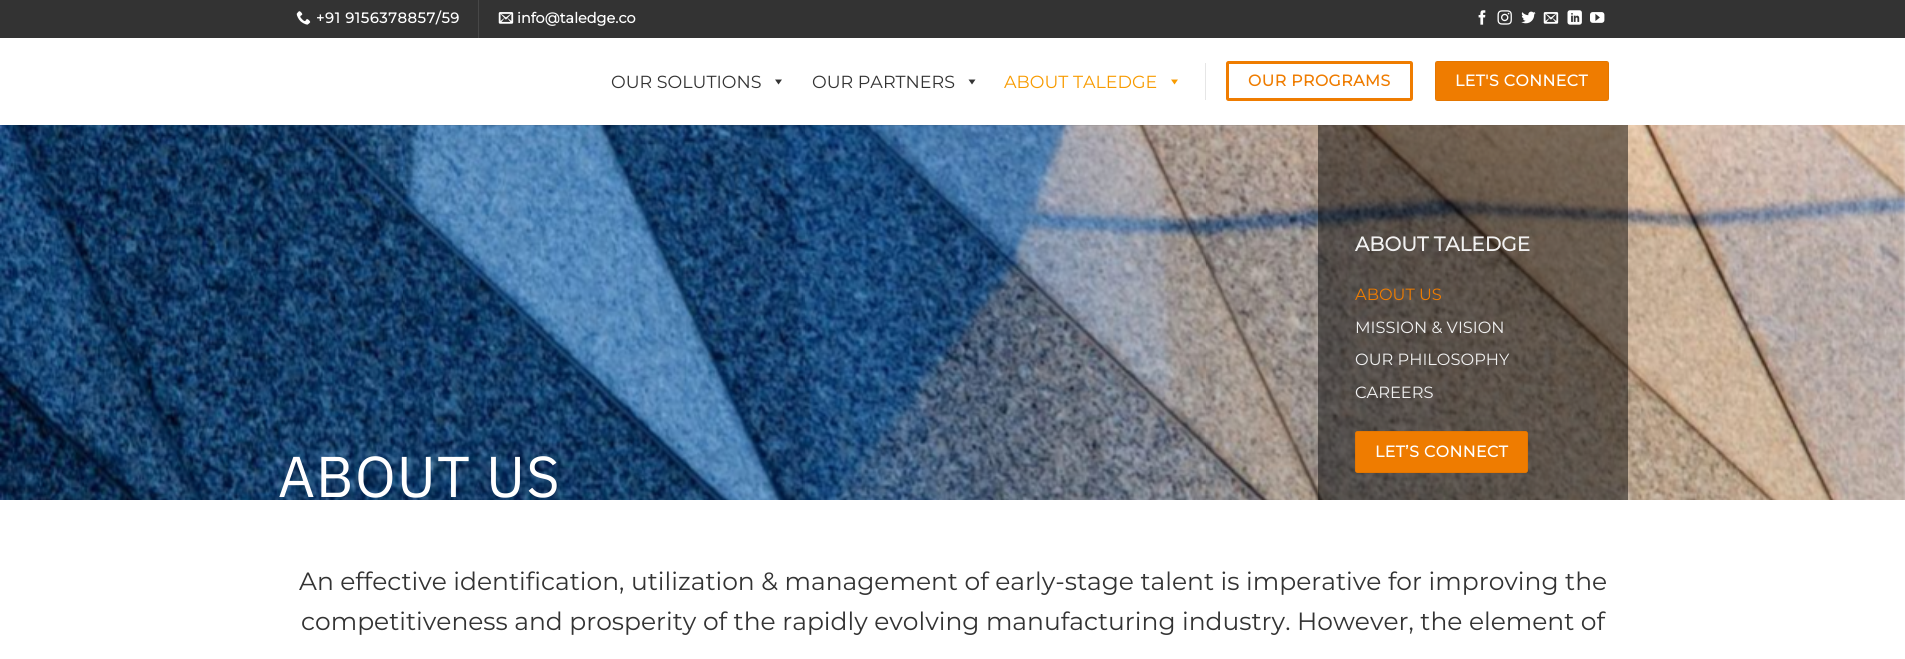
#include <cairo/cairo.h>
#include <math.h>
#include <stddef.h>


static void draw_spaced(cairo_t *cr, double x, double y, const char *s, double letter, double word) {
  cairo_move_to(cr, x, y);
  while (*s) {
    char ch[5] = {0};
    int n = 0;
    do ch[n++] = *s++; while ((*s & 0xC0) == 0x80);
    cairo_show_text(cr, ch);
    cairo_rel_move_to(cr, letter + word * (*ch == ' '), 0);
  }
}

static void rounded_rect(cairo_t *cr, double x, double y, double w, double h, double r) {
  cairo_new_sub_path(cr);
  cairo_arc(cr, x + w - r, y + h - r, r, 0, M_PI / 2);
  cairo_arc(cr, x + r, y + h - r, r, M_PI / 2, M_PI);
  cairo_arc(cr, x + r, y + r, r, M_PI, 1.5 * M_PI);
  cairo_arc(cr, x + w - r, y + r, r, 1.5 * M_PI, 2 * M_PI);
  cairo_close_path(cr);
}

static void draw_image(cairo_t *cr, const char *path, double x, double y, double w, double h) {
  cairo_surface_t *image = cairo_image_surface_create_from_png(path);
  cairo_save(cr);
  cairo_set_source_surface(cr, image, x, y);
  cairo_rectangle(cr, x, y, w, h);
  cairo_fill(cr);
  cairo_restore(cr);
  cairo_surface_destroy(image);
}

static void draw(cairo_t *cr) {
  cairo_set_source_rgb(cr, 1, 1, 1);
  cairo_paint(cr);
  cairo_set_source_rgb(cr, 51 / 255.0, 51 / 255.0, 51 / 255.0);
  cairo_rectangle(cr, 0, 0, 1905, 38);
  cairo_fill(cr);
  draw_image(cr, "images/1.png", 296, 11, 15, 14);
  cairo_set_source_rgb(cr, 71 / 255.0, 71 / 255.0, 71 / 255.0);
  cairo_rectangle(cr, 478, 0, 1, 38);
  cairo_fill(cr);
  draw_image(cr, "images/2.png", 498, 12, 16, 12);
  draw_image(cr, "images/3.png", 1478, 10, 8, 15);
  draw_image(cr, "images/4.png", 1497, 10, 15, 15);
  draw_image(cr, "images/5.png", 1521, 11, 15, 13);
  draw_image(cr, "images/2.png", 1543, 12, 16, 12);
  draw_image(cr, "images/6.png", 1567, 10, 15, 15);
  draw_image(cr, "images/7.png", 1590, 12, 15, 11);
  cairo_set_source_rgb(cr, 51 / 255.0, 51 / 255.0, 51 / 255.0);
  cairo_new_path(cr);
  cairo_move_to(cr, 782, 79.5);
  cairo_line_to(cr, 778.5, 84.5);
  cairo_line_to(cr, 775, 79.5);
  cairo_close_path(cr);
  cairo_fill(cr);
  cairo_new_path(cr);
  cairo_move_to(cr, 975.5, 79.5);
  cairo_line_to(cr, 972, 84.5);
  cairo_line_to(cr, 968.5, 79.5);
  cairo_close_path(cr);
  cairo_fill(cr);
  cairo_set_source_rgb(cr, 248 / 255.0, 155 / 255.0, 0);
  cairo_new_path(cr);
  cairo_move_to(cr, 1178, 79.5);
  cairo_line_to(cr, 1174.5, 84.5);
  cairo_line_to(cr, 1171, 79.5);
  cairo_close_path(cr);
  cairo_fill(cr);
  cairo_set_source_rgb(cr, 230 / 255.0, 230 / 255.0, 230 / 255.0);
  cairo_rectangle(cr, 1205, 63, 1, 37);
  cairo_fill(cr);
  rounded_rect(cr, 1227.5, 62.5, 184, 37, 1);
  cairo_set_source_rgb(cr, 239 / 255.0, 124 / 255.0, 0);
  cairo_set_line_width(cr, 3);
  cairo_stroke(cr);
  rounded_rect(cr, 1435, 61, 174, 40, 2.5);
  cairo_fill(cr);
  cairo_rectangle(cr, 1435.5, 61.5, 173, 39);
  cairo_set_source_rgba(cr, 0, 0, 0, 0.05);
  cairo_set_line_width(cr, 1);
  cairo_stroke(cr);
  draw_image(cr, "images/8.png", 0, 125, 1905, 375);
  cairo_set_source_rgba(cr, 0, 0, 0, 0.48);
  cairo_rectangle(cr, 1318, 125, 310, 375);
  cairo_fill(cr);
  cairo_set_source_rgba(cr, 51 / 255.0, 51 / 255.0, 51 / 255.0, 0.1);
  cairo_rectangle(cr, 296, 125, 1313, 1);
  cairo_fill(cr);
  cairo_set_source_rgb(cr, 239 / 255.0, 124 / 255.0, 0);
  rounded_rect(cr, 1355, 431, 173, 42, 2.5);
  cairo_fill(cr);
  cairo_rectangle(cr, 1355.5, 431.5, 172, 41);
  cairo_set_source_rgba(cr, 0, 0, 0, 0.05);
  cairo_stroke(cr);
  cairo_select_font_face(cr, "Montserrat", CAIRO_FONT_SLANT_NORMAL, CAIRO_FONT_WEIGHT_BOLD);
  cairo_set_font_size(cr, 14.5);
  cairo_set_source_rgb(cr, 1, 1, 1);
  draw_spaced(cr, 316, 23, "+91 9156378857/59", 0.75, 0);
  cairo_move_to(cr, 517, 23);
  cairo_show_text(cr, "info@taledge.co");
  cairo_select_font_face(cr, "Montserrat Thin", CAIRO_FONT_SLANT_NORMAL, CAIRO_FONT_WEIGHT_NORMAL);
  cairo_set_font_size(cr, 17.5);
  cairo_set_source_rgb(cr, 51 / 255.0, 51 / 255.0, 51 / 255.0);
  cairo_move_to(cr, 611, 88);
  cairo_show_text(cr, "OUR SOLUTIONS");
  cairo_move_to(cr, 812, 88);
  cairo_show_text(cr, "OUR PARTNERS");
  cairo_set_source_rgb(cr, 248 / 255.0, 155 / 255.0, 0);
  cairo_move_to(cr, 1004, 88);
  cairo_show_text(cr, "ABOUT TALEDGE");
  cairo_select_font_face(cr, "Montserrat", CAIRO_FONT_SLANT_NORMAL, CAIRO_FONT_WEIGHT_BOLD);
  cairo_set_font_size(cr, 15.75);
  cairo_set_source_rgb(cr, 239 / 255.0, 124 / 255.0, 0);
  draw_spaced(cr, 1248, 86, "OUR PROGRAMS", 0.5, 0);
  cairo_set_source_rgb(cr, 1, 1, 1);
  draw_spaced(cr, 1455, 86, "LET'S CONNECT", 0.5, 0);
  cairo_set_font_size(cr, 20);
  cairo_set_source_rgb(cr, 241 / 255.0, 241 / 255.0, 241 / 255.0);
  cairo_move_to(cr, 1355, 251);
  cairo_show_text(cr, "ABOUT TALEDGE");
  cairo_select_font_face(cr, "Montserrat Thin", CAIRO_FONT_SLANT_NORMAL, CAIRO_FONT_WEIGHT_NORMAL);
  cairo_set_font_size(cr, 16.25);
  cairo_set_source_rgb(cr, 239 / 255.0, 124 / 255.0, 0);
  cairo_move_to(cr, 1355, 300);
  cairo_show_text(cr, "ABOUT US");
  cairo_set_source_rgb(cr, 241 / 255.0, 241 / 255.0, 241 / 255.0);
  cairo_move_to(cr, 1355, 333);
  cairo_show_text(cr, "MISSION & VISION");
  cairo_move_to(cr, 1355, 365);
  cairo_show_text(cr, "OUR PHILOSOPHY");
  cairo_move_to(cr, 1355, 398);
  cairo_show_text(cr, "CAREERS");
  cairo_select_font_face(cr, "Montserrat", CAIRO_FONT_SLANT_NORMAL, CAIRO_FONT_WEIGHT_BOLD);
  cairo_set_font_size(cr, 15.75);
  cairo_set_source_rgb(cr, 1, 1, 1);
  draw_spaced(cr, 1375, 457, "LET’S CONNECT", 0.5, 0);
  cairo_select_font_face(cr, "IBM Plex Sans", CAIRO_FONT_SLANT_NORMAL, CAIRO_FONT_WEIGHT_NORMAL);
  cairo_set_font_size(cr, 57.5);
  draw_spaced(cr, 278, 497, "ABOUT US", 1.25, 0);
  cairo_select_font_face(cr, "Montserrat Thin", CAIRO_FONT_SLANT_NORMAL, CAIRO_FONT_WEIGHT_NORMAL);
  cairo_set_font_size(cr, 24.95);
  cairo_set_source_rgb(cr, 51 / 255.0, 51 / 255.0, 51 / 255.0);
  cairo_move_to(cr, 299, 590);
  cairo_show_text(cr, "An effective identification, utilization & management of early-stage talent is imperative for improving the");
  cairo_move_to(cr, 301, 630);
  cairo_show_text(cr, "competitiveness and prosperity of the rapidly evolving manufacturing industry. However, the element of");
}

int main(void) {
  cairo_surface_t *surface = cairo_image_surface_create(CAIRO_FORMAT_RGB24, 1905, 659);
  cairo_t *cr = cairo_create(surface);
  cairo_font_options_t *options = cairo_font_options_create();
  cairo_font_options_set_hint_metrics(options, CAIRO_HINT_METRICS_OFF);
  cairo_font_options_set_hint_style(options, CAIRO_HINT_STYLE_NONE);
  cairo_set_font_options(cr, options);
  cairo_set_miter_limit(cr, 4);
  draw(cr);
  cairo_surface_write_to_png(surface, "out.png");
  cairo_font_options_destroy(options);
  cairo_destroy(cr);
  cairo_surface_destroy(surface);
  return 0;
}
